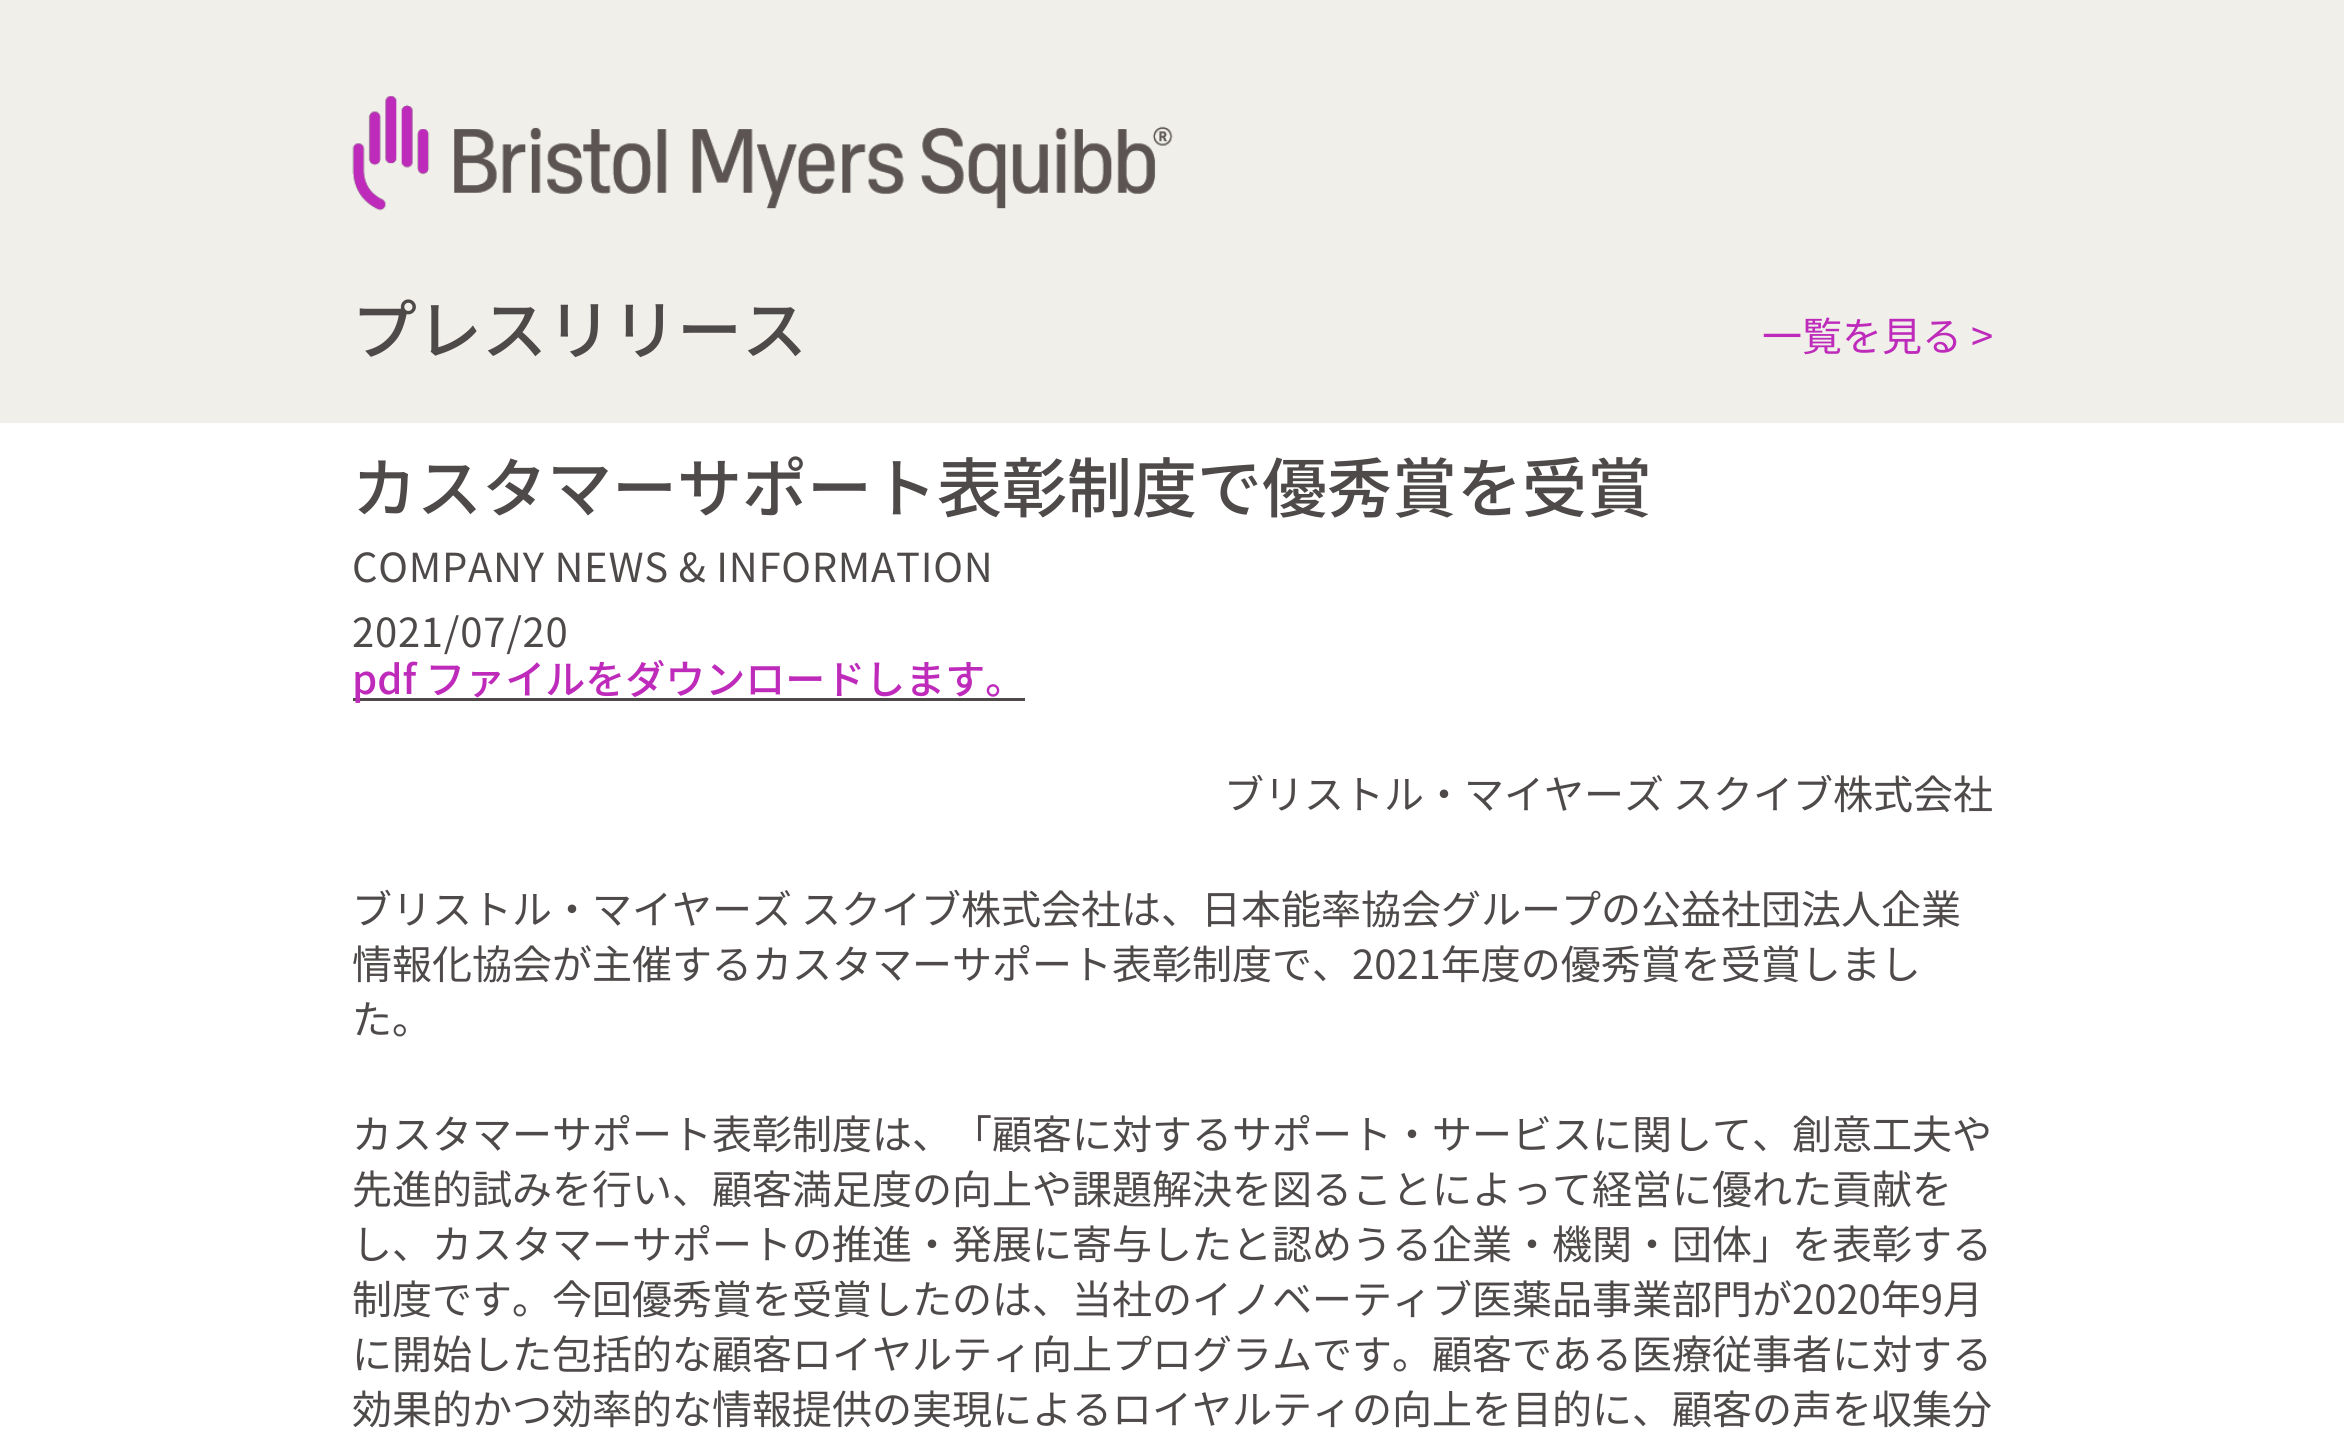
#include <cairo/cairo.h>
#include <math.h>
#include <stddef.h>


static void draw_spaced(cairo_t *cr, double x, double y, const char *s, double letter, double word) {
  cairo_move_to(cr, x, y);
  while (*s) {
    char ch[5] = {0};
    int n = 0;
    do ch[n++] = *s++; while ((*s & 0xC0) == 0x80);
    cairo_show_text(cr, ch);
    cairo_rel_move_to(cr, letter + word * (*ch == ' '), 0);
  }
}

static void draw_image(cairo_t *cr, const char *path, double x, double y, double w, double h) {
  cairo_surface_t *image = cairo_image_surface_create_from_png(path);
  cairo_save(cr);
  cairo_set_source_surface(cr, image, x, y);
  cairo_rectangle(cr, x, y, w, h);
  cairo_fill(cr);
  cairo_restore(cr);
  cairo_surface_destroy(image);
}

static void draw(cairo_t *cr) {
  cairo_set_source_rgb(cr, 1, 1, 1);
  cairo_paint(cr);
  cairo_set_source_rgb(cr, 240 / 255.0, 239 / 255.0, 234 / 255.0);
  cairo_rectangle(cr, 0, 0, 2344, 423);
  cairo_fill(cr);
  draw_image(cr, "images/1.png", 352, 96, 821, 115);
  cairo_set_source_rgb(cr, 79 / 255.0, 74 / 255.0, 74 / 255.0);
  cairo_rectangle(cr, 353, 698, 672, 3);
  cairo_fill(cr);
  cairo_select_font_face(cr, "Noto Sans JP Medium", CAIRO_FONT_SLANT_NORMAL, CAIRO_FONT_WEIGHT_NORMAL);
  cairo_set_font_size(cr, 65);
  cairo_move_to(cr, 352, 354);
  cairo_show_text(cr, "プレスリリース");
  cairo_select_font_face(cr, "Noto Sans JP", CAIRO_FONT_SLANT_NORMAL, CAIRO_FONT_WEIGHT_NORMAL);
  cairo_set_font_size(cr, 40);
  cairo_set_source_rgb(cr, 190 / 255.0, 43 / 255.0, 187 / 255.0);
  cairo_move_to(cr, 1762, 351);
  cairo_show_text(cr, "一覧を見る >");
  cairo_select_font_face(cr, "Noto Sans JP Medium", CAIRO_FONT_SLANT_NORMAL, CAIRO_FONT_WEIGHT_NORMAL);
  cairo_set_font_size(cr, 65);
  cairo_set_source_rgb(cr, 79 / 255.0, 74 / 255.0, 74 / 255.0);
  cairo_move_to(cr, 352, 512);
  cairo_show_text(cr, "カスタマーサポート表彰制度で優秀賞を受賞");
  cairo_select_font_face(cr, "Noto Sans JP", CAIRO_FONT_SLANT_NORMAL, CAIRO_FONT_WEIGHT_NORMAL);
  cairo_set_font_size(cr, 40);
  draw_spaced(cr, 352, 582, "COMPANY NEWS & INFORMATION", 0.75, 0);
  draw_spaced(cr, 352, 647, "2021/07/20", 0.75, 0);
  cairo_select_font_face(cr, "Noto Sans JP Medium", CAIRO_FONT_SLANT_NORMAL, CAIRO_FONT_WEIGHT_NORMAL);
  cairo_set_source_rgb(cr, 190 / 255.0, 43 / 255.0, 187 / 255.0);
  cairo_move_to(cr, 352, 694);
  cairo_show_text(cr, "pdf ファイルをダウンロードします。");
  cairo_select_font_face(cr, "Noto Sans JP", CAIRO_FONT_SLANT_NORMAL, CAIRO_FONT_WEIGHT_NORMAL);
  cairo_set_source_rgb(cr, 79 / 255.0, 74 / 255.0, 74 / 255.0);
  cairo_move_to(cr, 1224, 809);
  cairo_show_text(cr, "ブリストル・マイヤーズ スクイブ株式会社");
  cairo_move_to(cr, 352, 924);
  cairo_show_text(cr, "ブリストル・マイヤーズ スクイブ株式会社は、日本能率協会グループの公益社団法人企業");
  cairo_move_to(cr, 352, 979);
  cairo_show_text(cr, "情報化協会が主催するカスタマーサポート表彰制度で、2021年度の優秀賞を受賞しまし");
  cairo_move_to(cr, 352, 1034);
  cairo_show_text(cr, "た。");
  cairo_move_to(cr, 352, 1149);
  cairo_show_text(cr, "カスタマーサポート表彰制度は、「顧客に対するサポート・サービスに関して、創意工夫や");
  cairo_move_to(cr, 352, 1204);
  cairo_show_text(cr, "先進的試みを行い、顧客満足度の向上や課題解決を図ることによって経営に優れた貢献を");
  cairo_move_to(cr, 352, 1259);
  cairo_show_text(cr, "し、カスタマーサポートの推進・発展に寄与したと認めうる企業・機関・団体」を表彰する");
  cairo_move_to(cr, 352, 1314);
  cairo_show_text(cr, "制度です。今回優秀賞を受賞したのは、当社のイノベーティブ医薬品事業部門が2020年9月");
  cairo_move_to(cr, 352, 1369);
  cairo_show_text(cr, "に開始した包括的な顧客ロイヤルティ向上プログラムです。顧客である医療従事者に対する");
  cairo_move_to(cr, 352, 1424);
  cairo_show_text(cr, "効果的かつ効率的な情報提供の実現によるロイヤルティの向上を目的に、顧客の声を収集分");
}

int main(void) {
  cairo_surface_t *surface = cairo_image_surface_create(CAIRO_FORMAT_RGB24, 2344, 1450);
  cairo_t *cr = cairo_create(surface);
  cairo_font_options_t *options = cairo_font_options_create();
  cairo_font_options_set_hint_metrics(options, CAIRO_HINT_METRICS_OFF);
  cairo_font_options_set_hint_style(options, CAIRO_HINT_STYLE_NONE);
  cairo_set_font_options(cr, options);
  cairo_set_miter_limit(cr, 4);
  draw(cr);
  cairo_surface_write_to_png(surface, "out.png");
  cairo_font_options_destroy(options);
  cairo_destroy(cr);
  cairo_surface_destroy(surface);
  return 0;
}
